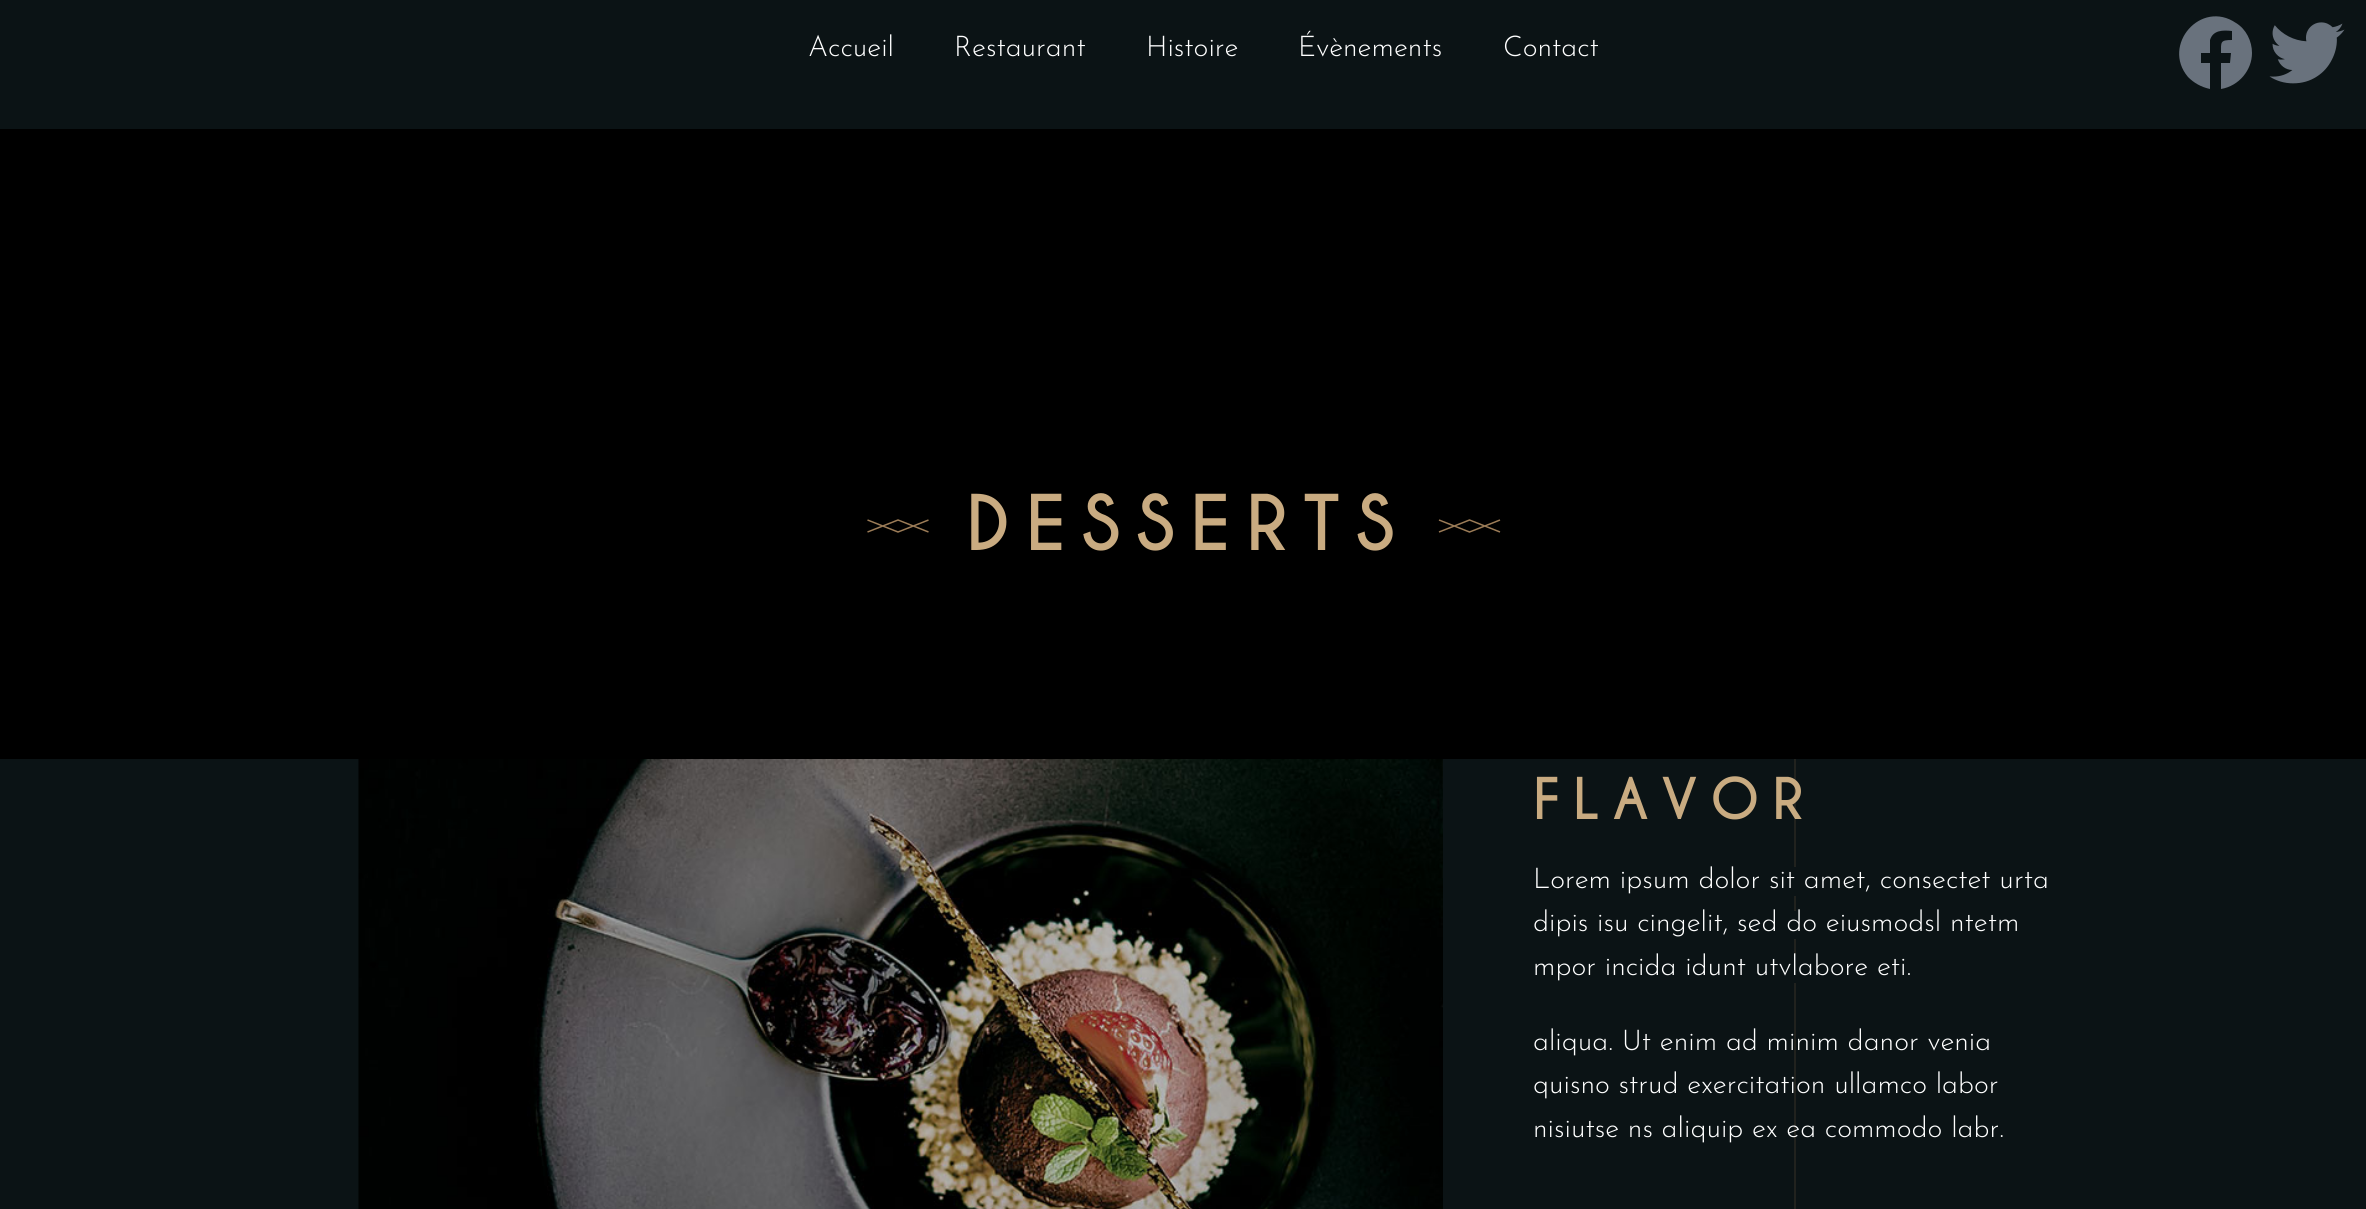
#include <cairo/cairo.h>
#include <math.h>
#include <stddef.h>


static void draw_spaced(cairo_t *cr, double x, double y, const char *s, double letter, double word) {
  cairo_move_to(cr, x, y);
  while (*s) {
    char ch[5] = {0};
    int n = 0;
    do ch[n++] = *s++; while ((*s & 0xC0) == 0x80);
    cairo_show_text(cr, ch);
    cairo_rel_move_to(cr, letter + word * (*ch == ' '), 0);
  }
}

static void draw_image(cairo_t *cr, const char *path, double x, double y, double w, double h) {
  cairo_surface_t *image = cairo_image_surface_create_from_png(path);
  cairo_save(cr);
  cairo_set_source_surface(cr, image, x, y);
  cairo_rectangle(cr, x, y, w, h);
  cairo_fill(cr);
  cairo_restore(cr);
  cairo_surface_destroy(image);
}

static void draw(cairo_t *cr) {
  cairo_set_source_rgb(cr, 11 / 255.0, 19 / 255.0, 21 / 255.0);
  cairo_paint(cr);
  cairo_set_source_rgb(cr, 105 / 255.0, 114 / 255.0, 125 / 255.0);
  cairo_new_path(cr);
  cairo_move_to(cr, 2252, 53);
  cairo_curve_to(cr, 2252, 70, 2239, 86, 2221, 89);
  cairo_line_to(cr, 2221, 63);
  cairo_line_to(cr, 2230, 63);
  cairo_line_to(cr, 2231, 53);
  cairo_line_to(cr, 2221, 53);
  cairo_curve_to(cr, 2221, 42, 2220, 40, 2232, 40);
  cairo_line_to(cr, 2232, 31);
  cairo_curve_to(cr, 2223, 30, 2213, 30, 2210, 40);
  cairo_line_to(cr, 2210, 53);
  cairo_line_to(cr, 2201, 53);
  cairo_line_to(cr, 2201, 63);
  cairo_line_to(cr, 2210, 63);
  cairo_line_to(cr, 2210, 89);
  cairo_curve_to(cr, 2201, 87, 2194, 83, 2188, 77);
  cairo_curve_to(cr, 2161, 45, 2201, -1, 2236, 23);
  cairo_curve_to(cr, 2246, 29, 2252, 41, 2252, 53);
  cairo_close_path(cr);
  cairo_fill(cr);
  draw_image(cr, "images/1.png", 2269, 22, 76, 62);
  cairo_set_source_rgb(cr, 0, 0, 0);
  cairo_rectangle(cr, 0, 129, 2366, 630);
  cairo_fill(cr);
  cairo_new_path(cr);
  cairo_move_to(cr, 928.5, 532);
  cairo_line_to(cr, 898, 520);
  cairo_line_to(cr, 867.5, 532);
  cairo_move_to(cr, 928.5, 520);
  cairo_line_to(cr, 898, 532);
  cairo_line_to(cr, 867.5, 520);
  cairo_set_source_rgb(cr, 156 / 255.0, 124 / 255.0, 87 / 255.0);
  cairo_set_line_width(cr, 1.5);
  cairo_stroke(cr);
  cairo_new_path(cr);
  cairo_move_to(cr, 1500, 532);
  cairo_line_to(cr, 1469.5, 520);
  cairo_line_to(cr, 1439, 532);
  cairo_move_to(cr, 1500, 520);
  cairo_line_to(cr, 1469.5, 532);
  cairo_line_to(cr, 1439, 520);
  cairo_stroke(cr);
  cairo_set_source_rgb(cr, 33 / 255.0, 34 / 255.0, 30 / 255.0);
  cairo_rectangle(cr, 1794, 759, 2, 450);
  cairo_fill(cr);
  draw_image(cr, "images/2.png", 358, 759, 1085, 450);
  cairo_set_source_rgb(cr, 11 / 255.0, 19 / 255.0, 21 / 255.0);
  cairo_rectangle(cr, 1794, 867, 2, 29);
  cairo_fill(cr);
  cairo_rectangle(cr, 1794, 911, 2, 28);
  cairo_fill(cr);
  cairo_rectangle(cr, 1794, 954, 2, 29);
  cairo_fill(cr);
  cairo_select_font_face(cr, "Josefin Sans Light", CAIRO_FONT_SLANT_NORMAL, CAIRO_FONT_WEIGHT_NORMAL);
  cairo_set_font_size(cr, 28.5);
  cairo_set_source_rgb(cr, 1, 1, 1);
  cairo_move_to(cr, 808, 56);
  cairo_show_text(cr, "Accueil");
  cairo_move_to(cr, 954, 56);
  cairo_show_text(cr, "Restaurant");
  cairo_move_to(cr, 1146, 56);
  cairo_show_text(cr, "Histoire");
  cairo_move_to(cr, 1298, 56);
  cairo_show_text(cr, "Évènements");
  cairo_move_to(cr, 1503, 56);
  cairo_show_text(cr, "Contact");
  cairo_select_font_face(cr, "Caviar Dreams", CAIRO_FONT_SLANT_NORMAL, CAIRO_FONT_WEIGHT_BOLD);
  cairo_set_font_size(cr, 72);
  cairo_set_source_rgb(cr, 201 / 255.0, 171 / 255.0, 129 / 255.0);
  draw_spaced(cr, 966, 550, "DESSERTS", 15.75, 0);
  cairo_set_font_size(cr, 54);
  draw_spaced(cr, 1533, 819, "FLAVOR", 12.5, 0);
  cairo_select_font_face(cr, "Josefin Sans Light", CAIRO_FONT_SLANT_NORMAL, CAIRO_FONT_WEIGHT_NORMAL);
  cairo_set_font_size(cr, 28.5);
  cairo_set_source_rgb(cr, 1, 1, 1);
  cairo_move_to(cr, 1533, 888);
  cairo_show_text(cr, "Lorem ipsum dolor sit amet, consectet urta");
  cairo_move_to(cr, 1533, 931);
  cairo_show_text(cr, "dipis isu cingelit, sed do eiusmodsl ntetm");
  cairo_move_to(cr, 1533, 975);
  cairo_show_text(cr, "mpor incida idunt utvlabore eti.");
  cairo_move_to(cr, 1533, 1050);
  cairo_show_text(cr, "aliqua. Ut enim ad minim danor venia");
  cairo_move_to(cr, 1533, 1093);
  cairo_show_text(cr, "quisno strud exercitation ullamco labor");
  cairo_move_to(cr, 1533, 1137);
  cairo_show_text(cr, "nisiutse ns aliquip ex ea commodo labr.");
}

int main(void) {
  cairo_surface_t *surface = cairo_image_surface_create(CAIRO_FORMAT_RGB24, 2366, 1209);
  cairo_t *cr = cairo_create(surface);
  cairo_font_options_t *options = cairo_font_options_create();
  cairo_font_options_set_hint_metrics(options, CAIRO_HINT_METRICS_OFF);
  cairo_font_options_set_hint_style(options, CAIRO_HINT_STYLE_NONE);
  cairo_set_font_options(cr, options);
  cairo_set_miter_limit(cr, 4);
  draw(cr);
  cairo_surface_write_to_png(surface, "out.png");
  cairo_font_options_destroy(options);
  cairo_destroy(cr);
  cairo_surface_destroy(surface);
  return 0;
}
